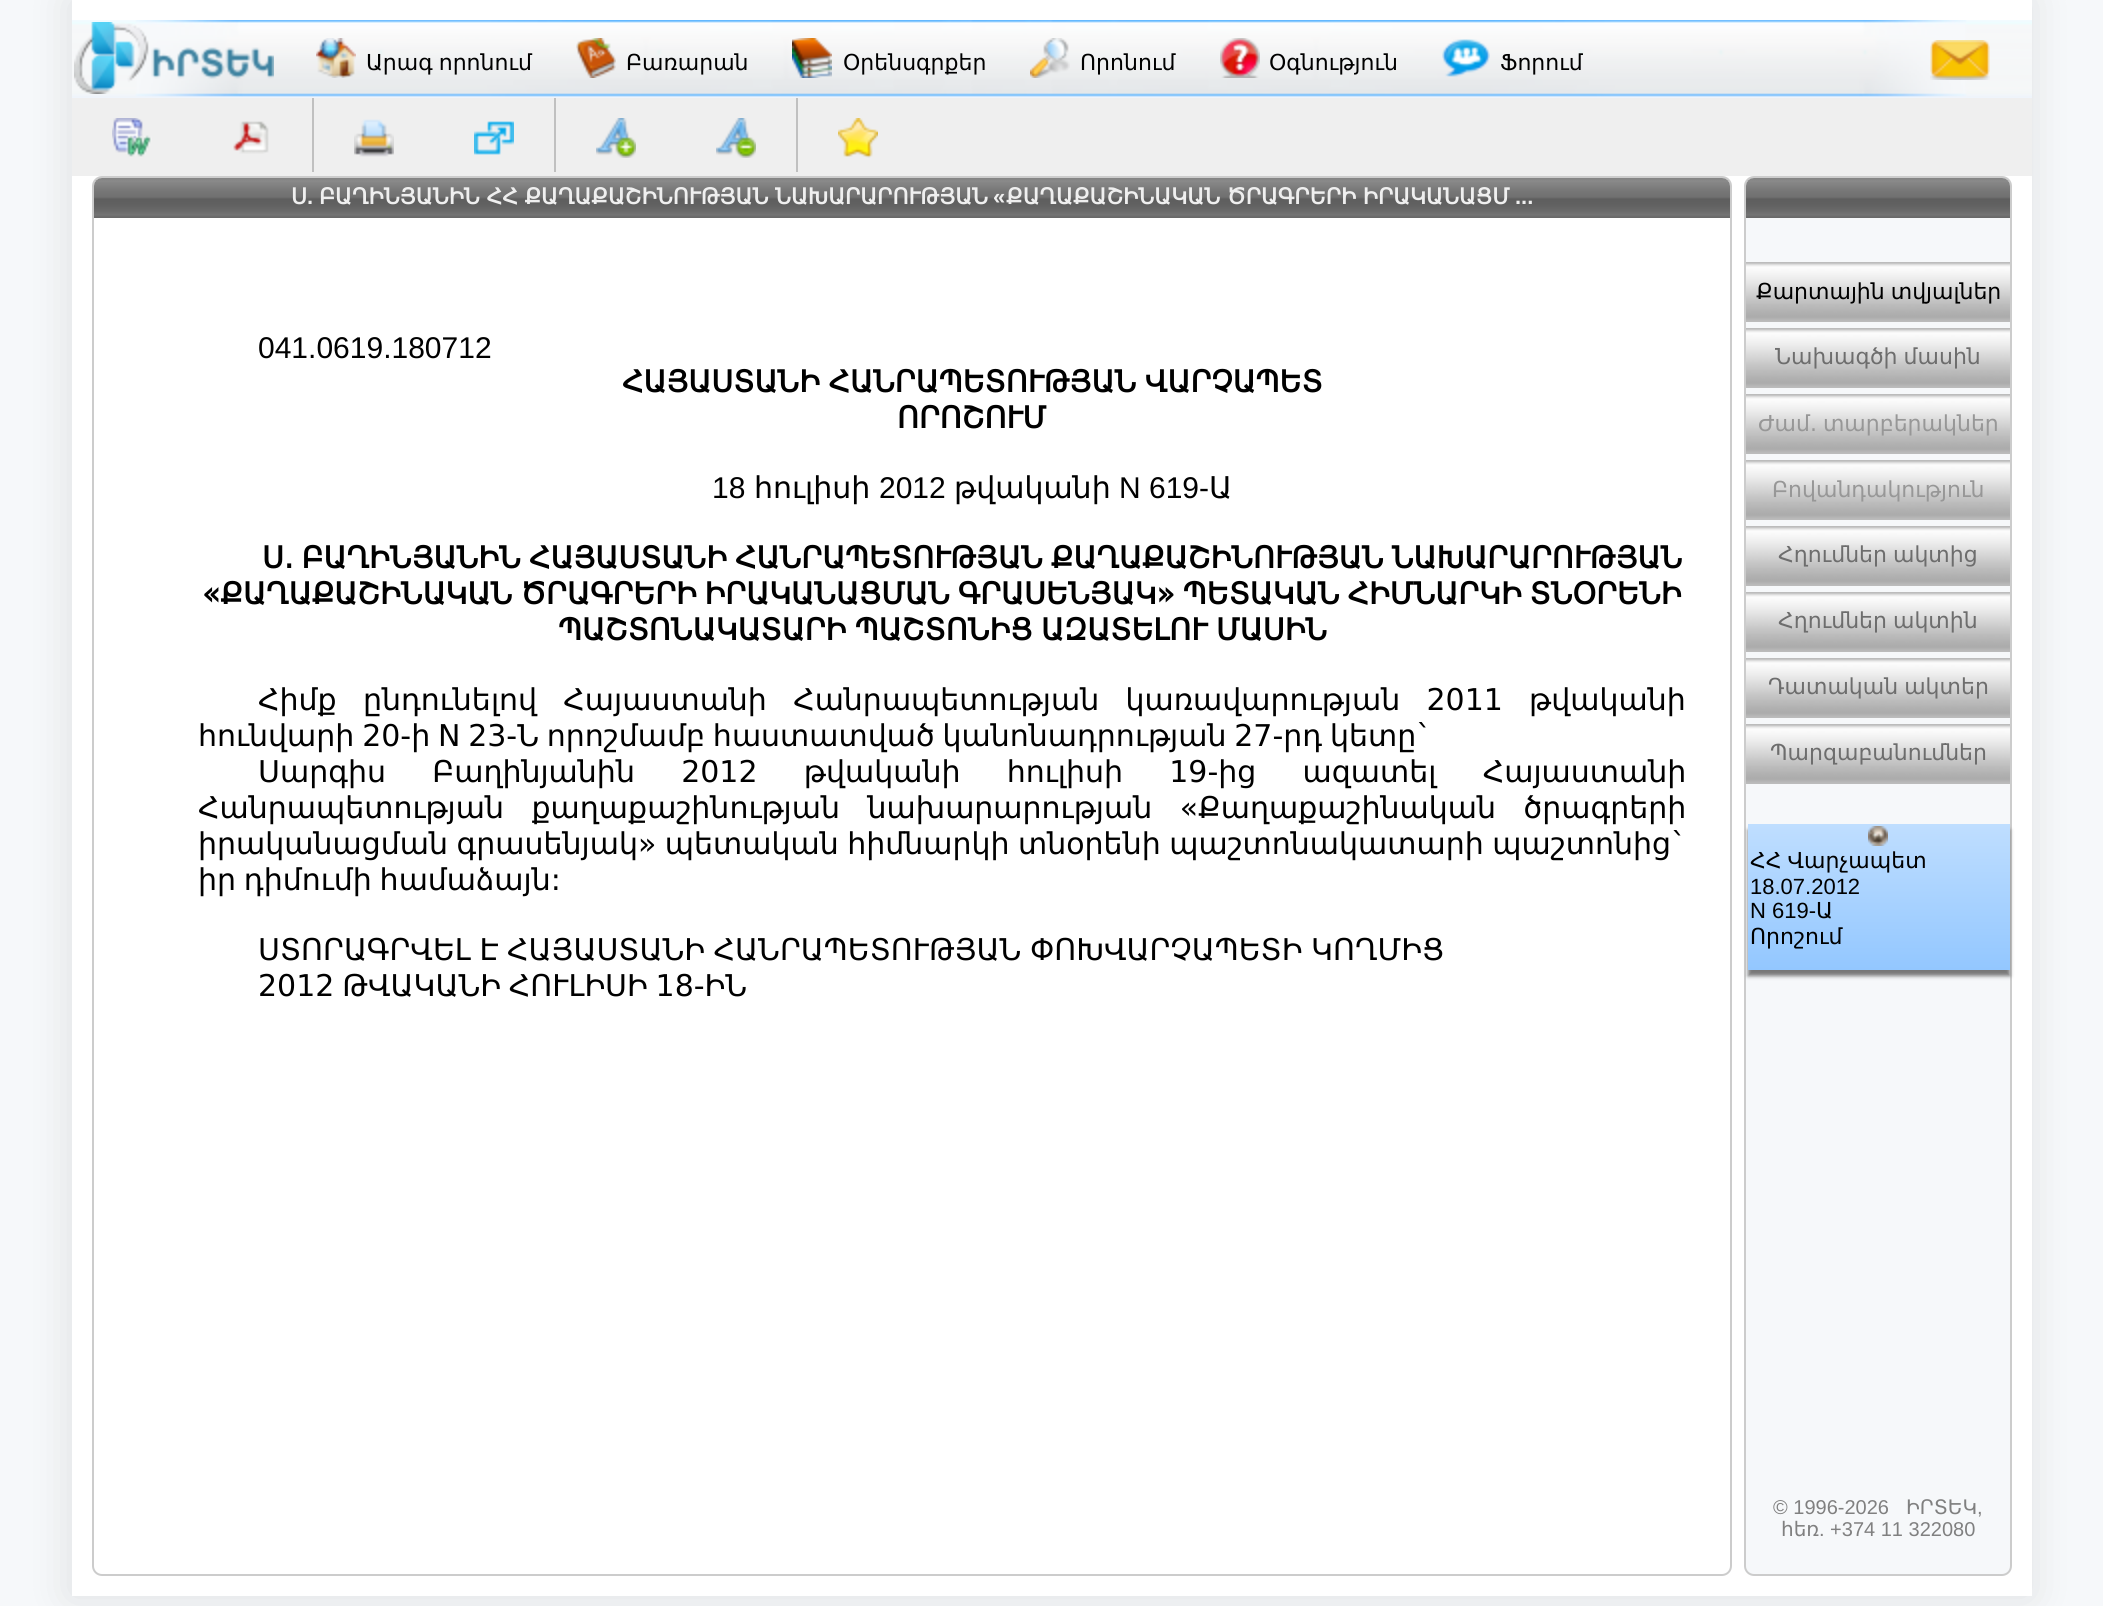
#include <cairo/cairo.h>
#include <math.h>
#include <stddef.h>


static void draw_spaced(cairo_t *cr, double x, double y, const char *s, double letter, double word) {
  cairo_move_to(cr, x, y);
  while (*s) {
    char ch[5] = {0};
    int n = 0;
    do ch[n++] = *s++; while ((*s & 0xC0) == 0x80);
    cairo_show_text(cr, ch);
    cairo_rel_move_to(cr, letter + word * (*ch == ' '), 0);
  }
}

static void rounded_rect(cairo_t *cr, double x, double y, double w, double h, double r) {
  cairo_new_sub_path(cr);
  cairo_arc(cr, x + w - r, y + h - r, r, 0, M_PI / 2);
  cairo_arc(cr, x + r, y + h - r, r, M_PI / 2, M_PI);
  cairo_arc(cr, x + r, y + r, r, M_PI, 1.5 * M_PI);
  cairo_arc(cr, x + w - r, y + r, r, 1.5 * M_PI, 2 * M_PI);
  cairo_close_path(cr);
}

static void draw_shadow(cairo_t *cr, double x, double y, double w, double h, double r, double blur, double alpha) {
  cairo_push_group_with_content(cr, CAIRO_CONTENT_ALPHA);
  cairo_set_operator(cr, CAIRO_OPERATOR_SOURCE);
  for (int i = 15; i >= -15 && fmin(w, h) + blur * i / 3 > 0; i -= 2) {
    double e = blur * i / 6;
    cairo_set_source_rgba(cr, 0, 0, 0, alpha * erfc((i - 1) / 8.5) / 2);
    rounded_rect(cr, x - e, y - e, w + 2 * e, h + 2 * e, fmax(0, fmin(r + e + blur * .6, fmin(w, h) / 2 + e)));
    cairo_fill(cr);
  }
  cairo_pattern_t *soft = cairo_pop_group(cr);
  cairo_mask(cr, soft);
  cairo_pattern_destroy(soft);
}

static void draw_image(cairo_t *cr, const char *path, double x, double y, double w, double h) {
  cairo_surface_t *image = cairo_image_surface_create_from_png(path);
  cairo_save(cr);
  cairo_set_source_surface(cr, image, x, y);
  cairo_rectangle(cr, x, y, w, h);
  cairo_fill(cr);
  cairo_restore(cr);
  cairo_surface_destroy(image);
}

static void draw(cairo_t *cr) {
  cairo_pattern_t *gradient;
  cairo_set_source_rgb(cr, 246 / 255.0, 248 / 255.0, 250 / 255.0);
  cairo_paint(cr);
  cairo_set_source_rgb(cr, 170 / 255.0, 170 / 255.0, 170 / 255.0);
  draw_shadow(cr, 70, 0, 1960, 1596, 0, 20, 0.32);
  cairo_set_source_rgb(cr, 1, 1, 1);
  cairo_rectangle(cr, 72, 0, 1960, 1596);
  cairo_fill(cr);
  draw_image(cr, "images/1.png", 72, 20, 1960, 78);
  draw_image(cr, "images/2.png", 74, 22, 200, 72);
  draw_image(cr, "images/3.png", 316, 38, 40, 40);
  draw_image(cr, "images/4.png", 576, 38, 40, 40);
  draw_image(cr, "images/5.png", 792, 38, 40, 40);
  draw_image(cr, "images/6.png", 1030, 38, 40, 40);
  draw_image(cr, "images/7.png", 1220, 38, 40, 40);
  draw_image(cr, "images/8.png", 1442, 39, 48, 38);
  draw_image(cr, "images/9.png", 1930, 40, 60, 40);
  cairo_set_source_rgb(cr, 239 / 255.0, 239 / 255.0, 239 / 255.0);
  cairo_rectangle(cr, 72, 98, 1960, 78);
  cairo_fill(cr);
  draw_image(cr, "images/10.png", 112, 118, 40, 39);
  draw_image(cr, "images/11.png", 233, 121, 36, 33);
  cairo_set_source_rgb(cr, 192 / 255.0, 192 / 255.0, 192 / 255.0);
  cairo_rectangle(cr, 312, 98, 2, 74);
  cairo_fill(cr);
  draw_image(cr, "images/12.png", 354, 119, 40, 38);
  draw_image(cr, "images/13.png", 474, 121, 40, 34);
  cairo_rectangle(cr, 554, 98, 2, 74);
  cairo_fill(cr);
  draw_image(cr, "images/14.png", 596, 118, 40, 40);
  draw_image(cr, "images/15.png", 716, 118, 40, 40);
  cairo_rectangle(cr, 796, 98, 2, 74);
  cairo_fill(cr);
  draw_image(cr, "images/16.png", 838, 118, 40, 40);
  rounded_rect(cr, 93, 177, 1638, 1398, 9);
  cairo_set_source_rgb(cr, 204 / 255.0, 204 / 255.0, 204 / 255.0);
  cairo_stroke(cr);
  draw_image(cr, "images/17.png", 94, 178, 1636, 40);
  cairo_set_source_rgb(cr, 246 / 255.0, 248 / 255.0, 250 / 255.0);
  rounded_rect(cr, 1745, 177, 266, 1398, 9);
  cairo_fill_preserve(cr);
  cairo_set_source_rgb(cr, 204 / 255.0, 204 / 255.0, 204 / 255.0);
  cairo_stroke(cr);
  draw_image(cr, "images/18.png", 1746, 178, 264, 40);
  draw_image(cr, "images/19.png", 1746, 262, 264, 60);
  draw_image(cr, "images/19.png", 1746, 328, 264, 60);
  draw_image(cr, "images/19.png", 1746, 394, 264, 60);
  draw_image(cr, "images/19.png", 1746, 460, 264, 60);
  draw_image(cr, "images/19.png", 1746, 526, 264, 60);
  draw_image(cr, "images/19.png", 1746, 592, 264, 60);
  draw_image(cr, "images/19.png", 1746, 658, 264, 60);
  draw_image(cr, "images/19.png", 1746, 724, 264, 60);
  cairo_set_source_rgb(cr, 119 / 255.0, 119 / 255.0, 119 / 255.0);
  draw_shadow(cr, 1748, 830, 262, 146, 0, 2, 1);
  gradient = cairo_pattern_create_linear(1879, 824, 1879, 970);
  cairo_pattern_add_color_stop_rgba(gradient, 0, 191 / 255.0, 222 / 255.0, 1, 1);
  cairo_pattern_add_color_stop_rgba(gradient, 1, 147 / 255.0, 199 / 255.0, 1, 1);
  cairo_set_source(cr, gradient);
  cairo_pattern_destroy(gradient);
  cairo_rectangle(cr, 1748, 824, 262, 146);
  cairo_fill(cr);
  draw_image(cr, "images/20.png", 1868, 826, 20, 20);
  cairo_select_font_face(cr, "DejaVu Sans", CAIRO_FONT_SLANT_NORMAL, CAIRO_FONT_WEIGHT_NORMAL);
  cairo_set_font_size(cr, 22);
  cairo_set_source_rgb(cr, 0, 0, 0);
  draw_spaced(cr, 366, 70, "Արագ որոնում", 0, -1);
  cairo_move_to(cr, 626, 70);
  cairo_show_text(cr, "Բառարան");
  cairo_move_to(cr, 843, 70);
  cairo_show_text(cr, "Օրենսգրքեր");
  cairo_move_to(cr, 1080, 70);
  cairo_show_text(cr, "Որոնում");
  cairo_move_to(cr, 1269, 70);
  cairo_show_text(cr, "Օգնություն");
  cairo_move_to(cr, 1500, 70);
  cairo_show_text(cr, "Ֆորում");
  cairo_select_font_face(cr, "DejaVu Sans", CAIRO_FONT_SLANT_NORMAL, CAIRO_FONT_WEIGHT_BOLD);
  cairo_set_source_rgb(cr, 239 / 255.0, 239 / 255.0, 239 / 255.0);
  cairo_move_to(cr, 291, 204);
  cairo_show_text(cr, "Ս");
  cairo_select_font_face(cr, "Liberation Sans", CAIRO_FONT_SLANT_NORMAL, CAIRO_FONT_WEIGHT_BOLD);
  cairo_move_to(cr, 307, 204);
  cairo_show_text(cr, ".");
  cairo_select_font_face(cr, "DejaVu Sans", CAIRO_FONT_SLANT_NORMAL, CAIRO_FONT_WEIGHT_BOLD);
  draw_spaced(cr, 319, 204, "ԲԱՂԻՆՅԱՆԻՆ ՀՀ ՔԱՂԱՔԱՇԻՆՈՒԹՅԱՆ ՆԱԽԱՐԱՐՈՒԹՅԱՆ", 0, -0.5);
  cairo_select_font_face(cr, "Liberation Sans", CAIRO_FONT_SLANT_NORMAL, CAIRO_FONT_WEIGHT_BOLD);
  cairo_move_to(cr, 993, 204);
  cairo_show_text(cr, "«");
  cairo_select_font_face(cr, "DejaVu Sans", CAIRO_FONT_SLANT_NORMAL, CAIRO_FONT_WEIGHT_BOLD);
  draw_spaced(cr, 1006, 204, "ՔԱՂԱՔԱՇԻՆԱԿԱՆ ԾՐԱԳՐԵՐԻ ԻՐԱԿԱՆԱՑՄ", 0, -0.5);
  cairo_select_font_face(cr, "Liberation Sans", CAIRO_FONT_SLANT_NORMAL, CAIRO_FONT_WEIGHT_BOLD);
  cairo_move_to(cr, 1515, 204);
  cairo_show_text(cr, "...");
  cairo_select_font_face(cr, "Liberation Sans", CAIRO_FONT_SLANT_NORMAL, CAIRO_FONT_WEIGHT_NORMAL);
  cairo_set_font_size(cr, 30);
  cairo_set_source_rgb(cr, 0, 0, 0);
  cairo_move_to(cr, 258, 358);
  cairo_show_text(cr, "041.0619.180712");
  cairo_select_font_face(cr, "DejaVu Sans", CAIRO_FONT_SLANT_NORMAL, CAIRO_FONT_WEIGHT_BOLD);
  draw_spaced(cr, 622, 392, "ՀԱՅԱՍՏԱՆԻ ՀԱՆՐԱՊԵՏՈՒԹՅԱՆ ՎԱՐՉԱՊԵՏ", 0, -1);
  cairo_move_to(cr, 897, 428);
  cairo_show_text(cr, "ՈՐՈՇՈՒՄ");
  cairo_select_font_face(cr, "Liberation Sans", CAIRO_FONT_SLANT_NORMAL, CAIRO_FONT_WEIGHT_NORMAL);
  cairo_move_to(cr, 712, 498);
  cairo_show_text(cr, "18");
  cairo_select_font_face(cr, "DejaVu Sans", CAIRO_FONT_SLANT_NORMAL, CAIRO_FONT_WEIGHT_NORMAL);
  cairo_move_to(cr, 754, 498);
  cairo_show_text(cr, "հուլիսի");
  cairo_select_font_face(cr, "Liberation Sans", CAIRO_FONT_SLANT_NORMAL, CAIRO_FONT_WEIGHT_NORMAL);
  cairo_move_to(cr, 879, 498);
  cairo_show_text(cr, "2012");
  cairo_select_font_face(cr, "DejaVu Sans", CAIRO_FONT_SLANT_NORMAL, CAIRO_FONT_WEIGHT_NORMAL);
  cairo_move_to(cr, 954, 498);
  cairo_show_text(cr, "թվականի");
  cairo_select_font_face(cr, "Liberation Sans", CAIRO_FONT_SLANT_NORMAL, CAIRO_FONT_WEIGHT_NORMAL);
  cairo_move_to(cr, 1119, 498);
  cairo_show_text(cr, "N 619-");
  cairo_select_font_face(cr, "DejaVu Sans", CAIRO_FONT_SLANT_NORMAL, CAIRO_FONT_WEIGHT_NORMAL);
  cairo_move_to(cr, 1209, 498);
  cairo_show_text(cr, "Ա");
  cairo_select_font_face(cr, "DejaVu Sans", CAIRO_FONT_SLANT_NORMAL, CAIRO_FONT_WEIGHT_BOLD);
  draw_spaced(cr, 262, 568, "Ս. ԲԱՂԻՆՅԱՆԻՆ ՀԱՅԱՍՏԱՆԻ ՀԱՆՐԱՊԵՏՈՒԹՅԱՆ ՔԱՂԱՔԱՇԻՆՈՒԹՅԱՆ ՆԱԽԱՐԱՐՈՒԹՅԱՆ", 0, -1.5);
  draw_spaced(cr, 202, 604, "«ՔԱՂԱՔԱՇԻՆԱԿԱՆ ԾՐԱԳՐԵՐԻ ԻՐԱԿԱՆԱՑՄԱՆ ԳՐԱՍԵՆՅԱԿ» ՊԵՏԱԿԱՆ ՀԻՄՆԱՐԿԻ ՏՆՕՐԵՆԻ", 0, -1.75);
  draw_spaced(cr, 558, 640, "ՊԱՇՏՈՆԱԿԱՏԱՐԻ ՊԱՇՏՈՆԻՑ ԱԶԱՏԵԼՈՒ ՄԱՍԻՆ", 0, -1);
  cairo_select_font_face(cr, "DejaVu Sans", CAIRO_FONT_SLANT_NORMAL, CAIRO_FONT_WEIGHT_NORMAL);
  draw_spaced(cr, 258, 710, "Հիմք ընդունելով Հայաստանի Հանրապետության կառավարության 2011 թվականի", 0, 16.75);
  draw_spaced(cr, 198, 746, "հունվարի 20-ի N 23-Ն որոշմամբ հաստատված կանոնադրության 27-րդ կետը`", 0, -1.75);
  draw_spaced(cr, 258, 782, "Սարգիս Բաղինյանին 2012 թվականի հուլիսի 19-ից ազատել Հայաստանի", 0, 36.75);
  draw_spaced(cr, 198, 818, "Հանրապետության քաղաքաշինության նախարարության «Քաղաքաշինական ծրագրերի", 0, 18);
  draw_spaced(cr, 198, 854, "իրականացման գրասենյակ» պետական հիմնարկի տնօրենի պաշտոնակատարի պաշտոնից`", 0, -1);
  draw_spaced(cr, 198, 890, "իր դիմումի համաձայն:", 0, -1.75);
  draw_spaced(cr, 258, 960, "ՍՏՈՐԱԳՐՎԵԼ Է ՀԱՅԱՍՏԱՆԻ ՀԱՆՐԱՊԵՏՈՒԹՅԱՆ ՓՈԽՎԱՐՉԱՊԵՏԻ ԿՈՂՄԻՑ", 0, -1);
  draw_spaced(cr, 258, 996, "2012 ԹՎԱԿԱՆԻ ՀՈՒԼԻՍԻ 18-ԻՆ", 0, -1.75);
  cairo_set_font_size(cr, 22);
  draw_spaced(cr, 1756, 299, "Քարտային տվյալներ", 0, -1);
  cairo_set_source_rgb(cr, 109 / 255.0, 109 / 255.0, 109 / 255.0);
  draw_spaced(cr, 1775, 364, "Նախագծի մասին", 0, -1);
  cairo_set_source_rgb(cr, 151 / 255.0, 151 / 255.0, 151 / 255.0);
  draw_spaced(cr, 1758, 431, "Ժամ. տարբերակներ", 0, -1);
  cairo_move_to(cr, 1772, 497);
  cairo_show_text(cr, "Բովանդակություն");
  cairo_set_source_rgb(cr, 109 / 255.0, 109 / 255.0, 109 / 255.0);
  draw_spaced(cr, 1778, 562, "Հղումներ ակտից", 0, -1);
  draw_spaced(cr, 1778, 628, "Հղումներ ակտին", 0, -1);
  draw_spaced(cr, 1768, 694, "Դատական ակտեր", 0, -1);
  cairo_move_to(cr, 1770, 760);
  cairo_show_text(cr, "Պարզաբանումներ");
  cairo_set_source_rgb(cr, 0, 0, 0);
  draw_spaced(cr, 1750, 868, "ՀՀ Վարչապետ", 0, -1);
  cairo_select_font_face(cr, "Liberation Sans", CAIRO_FONT_SLANT_NORMAL, CAIRO_FONT_WEIGHT_NORMAL);
  cairo_move_to(cr, 1750, 894);
  cairo_show_text(cr, "18.07.2012");
  cairo_move_to(cr, 1750, 918);
  cairo_show_text(cr, "N 619-");
  cairo_select_font_face(cr, "DejaVu Sans", CAIRO_FONT_SLANT_NORMAL, CAIRO_FONT_WEIGHT_NORMAL);
  cairo_move_to(cr, 1816, 918);
  cairo_show_text(cr, "Ա");
  cairo_move_to(cr, 1750, 944);
  cairo_show_text(cr, "Որոշում");
  cairo_select_font_face(cr, "Liberation Sans", CAIRO_FONT_SLANT_NORMAL, CAIRO_FONT_WEIGHT_NORMAL);
  cairo_set_font_size(cr, 20);
  cairo_set_source_rgb(cr, 128 / 255.0, 128 / 255.0, 128 / 255.0);
  cairo_move_to(cr, 1773, 1514);
  cairo_show_text(cr, "© 1996-2026");
  cairo_select_font_face(cr, "DejaVu Sans", CAIRO_FONT_SLANT_NORMAL, CAIRO_FONT_WEIGHT_NORMAL);
  cairo_move_to(cr, 1906, 1514);
  cairo_show_text(cr, "ԻՐՏԵԿ");
  cairo_select_font_face(cr, "Liberation Sans", CAIRO_FONT_SLANT_NORMAL, CAIRO_FONT_WEIGHT_NORMAL);
  cairo_move_to(cr, 1977, 1514);
  cairo_show_text(cr, ",");
  cairo_select_font_face(cr, "DejaVu Sans", CAIRO_FONT_SLANT_NORMAL, CAIRO_FONT_WEIGHT_NORMAL);
  cairo_move_to(cr, 1781, 1536);
  cairo_show_text(cr, "հեռ");
  cairo_select_font_face(cr, "Liberation Sans", CAIRO_FONT_SLANT_NORMAL, CAIRO_FONT_WEIGHT_NORMAL);
  cairo_move_to(cr, 1819, 1536);
  cairo_show_text(cr, ". +374 11 322080");
}

int main(void) {
  cairo_surface_t *surface = cairo_image_surface_create(CAIRO_FORMAT_RGB24, 2103, 1606);
  cairo_t *cr = cairo_create(surface);
  cairo_font_options_t *options = cairo_font_options_create();
  cairo_font_options_set_hint_metrics(options, CAIRO_HINT_METRICS_OFF);
  cairo_font_options_set_hint_style(options, CAIRO_HINT_STYLE_NONE);
  cairo_set_font_options(cr, options);
  cairo_set_miter_limit(cr, 4);
  draw(cr);
  cairo_surface_write_to_png(surface, "out.png");
  cairo_font_options_destroy(options);
  cairo_destroy(cr);
  cairo_surface_destroy(surface);
  return 0;
}
